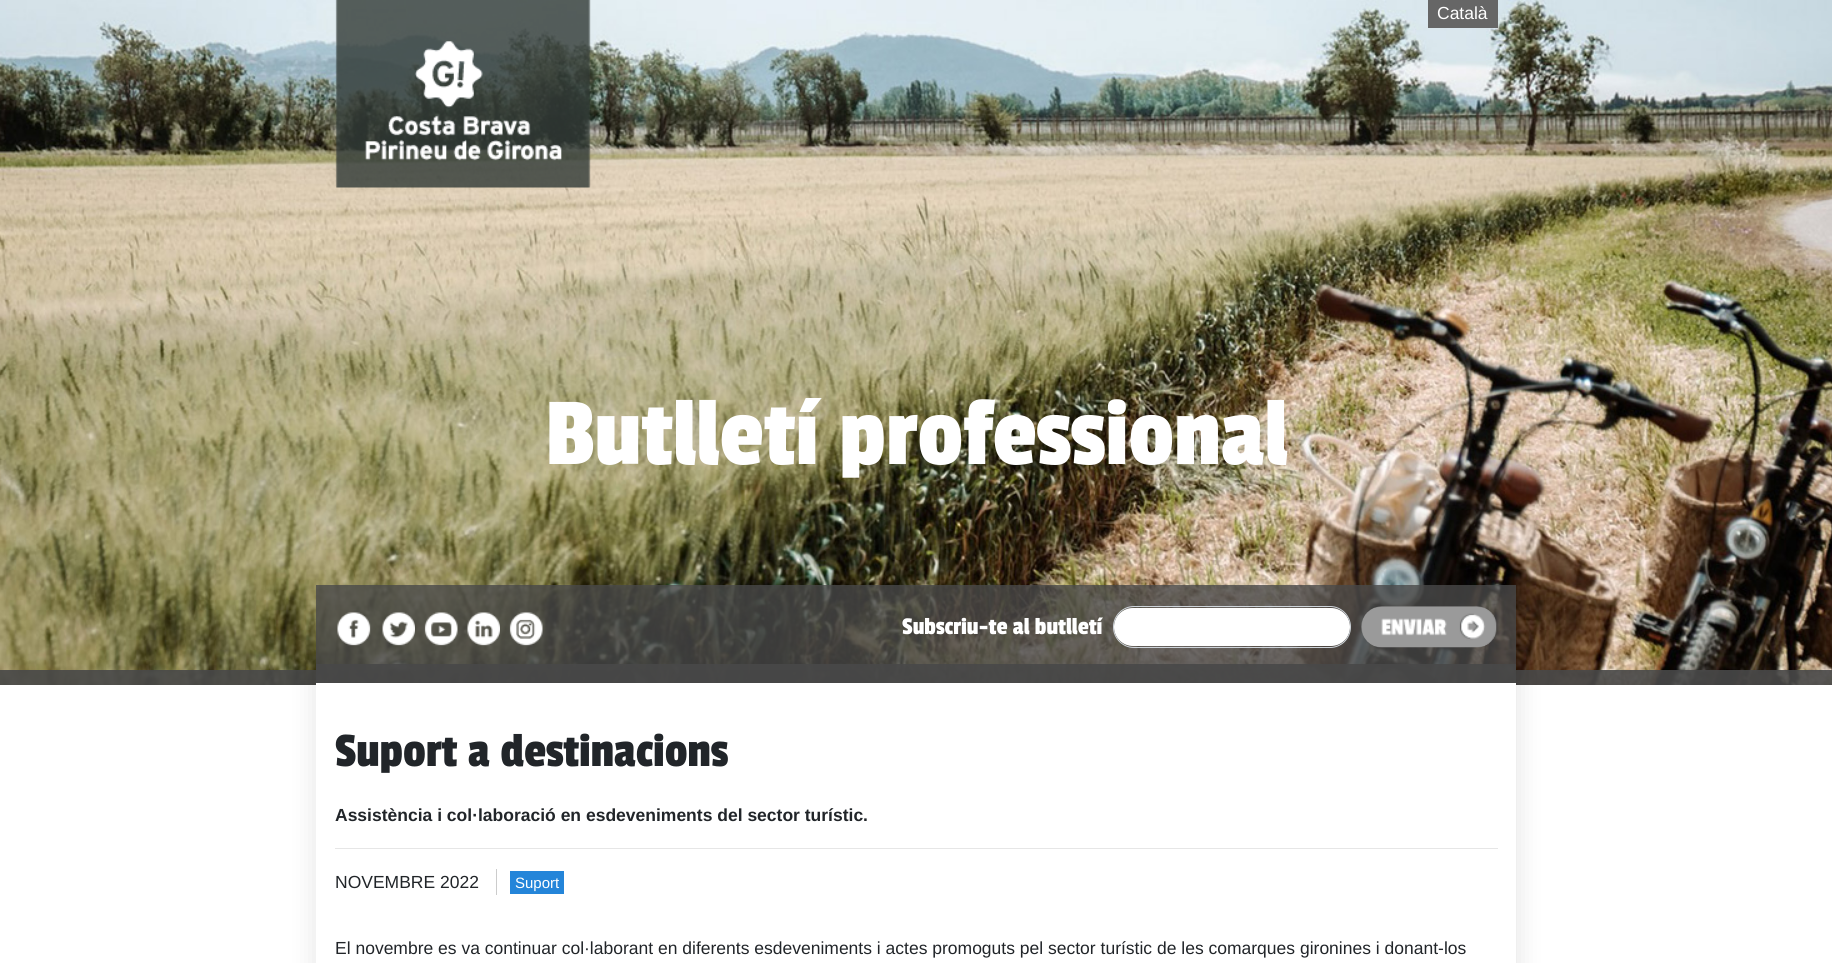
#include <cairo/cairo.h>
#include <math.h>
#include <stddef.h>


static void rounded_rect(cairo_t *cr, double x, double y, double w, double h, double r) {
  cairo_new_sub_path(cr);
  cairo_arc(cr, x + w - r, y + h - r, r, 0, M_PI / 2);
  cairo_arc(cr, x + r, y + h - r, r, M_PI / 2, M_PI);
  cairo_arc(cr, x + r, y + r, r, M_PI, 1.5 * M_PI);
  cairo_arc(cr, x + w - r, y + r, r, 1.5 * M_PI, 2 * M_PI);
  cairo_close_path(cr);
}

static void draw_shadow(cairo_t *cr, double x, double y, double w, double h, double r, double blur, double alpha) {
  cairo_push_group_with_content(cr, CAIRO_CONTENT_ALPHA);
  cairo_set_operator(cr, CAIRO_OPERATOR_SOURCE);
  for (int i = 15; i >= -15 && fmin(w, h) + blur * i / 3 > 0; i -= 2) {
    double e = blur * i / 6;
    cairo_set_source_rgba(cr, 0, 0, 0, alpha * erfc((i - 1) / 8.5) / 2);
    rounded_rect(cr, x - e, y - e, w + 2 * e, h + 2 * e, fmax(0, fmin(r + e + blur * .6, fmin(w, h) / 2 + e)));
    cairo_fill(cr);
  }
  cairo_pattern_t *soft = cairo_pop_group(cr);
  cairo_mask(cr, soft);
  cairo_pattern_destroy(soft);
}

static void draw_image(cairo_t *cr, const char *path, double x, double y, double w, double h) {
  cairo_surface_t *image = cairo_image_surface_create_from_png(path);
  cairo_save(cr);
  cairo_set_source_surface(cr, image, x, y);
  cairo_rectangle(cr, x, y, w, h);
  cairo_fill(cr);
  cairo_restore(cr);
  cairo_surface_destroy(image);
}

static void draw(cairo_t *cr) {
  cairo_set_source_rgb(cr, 1, 1, 1);
  cairo_paint(cr);
  draw_image(cr, "images/1.png", 0, 0, 1832, 685);
  cairo_set_source_rgba(cr, 73 / 255.0, 73 / 255.0, 73 / 255.0, 0.9);
  cairo_rectangle(cr, 0, 670, 1832, 15);
  cairo_fill(cr);
  draw_image(cr, "images/2.png", 335, 0, 256, 188);
  cairo_set_source_rgb(cr, 102 / 255.0, 102 / 255.0, 102 / 255.0);
  cairo_rectangle(cr, 1428, 0, 70, 28);
  cairo_fill(cr);
  cairo_save(cr);
  cairo_set_fill_rule(cr, CAIRO_FILL_RULE_EVEN_ODD);
  cairo_new_path(cr);
  cairo_move_to(cr, 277, 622);
  cairo_line_to(cr, 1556, 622);
  cairo_line_to(cr, 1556, 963);
  cairo_line_to(cr, 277, 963);
  cairo_close_path(cr);
  cairo_move_to(cr, 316, 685);
  cairo_line_to(cr, 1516, 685);
  cairo_line_to(cr, 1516, 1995);
  cairo_line_to(cr, 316, 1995);
  cairo_close_path(cr);
  cairo_clip(cr);
  cairo_set_source_rgb(cr, 0, 0, 0);
  draw_shadow(cr, 314, 659, 1205, 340, 0, 12, 0.1);
  cairo_restore(cr);
  cairo_set_source_rgba(cr, 73 / 255.0, 73 / 255.0, 73 / 255.0, 0.8);
  cairo_rectangle(cr, 316, 585, 1200, 98);
  cairo_fill(cr);
  cairo_set_source_rgba(cr, 73 / 255.0, 73 / 255.0, 73 / 255.0, 0.9);
  cairo_rectangle(cr, 316, 664, 1200, 6);
  cairo_fill(cr);
  draw_image(cr, "images/3.png", 337, 612, 34, 34);
  draw_image(cr, "images/4.png", 382, 612, 33, 34);
  draw_image(cr, "images/5.png", 424, 612, 34, 34);
  draw_image(cr, "images/6.png", 467, 612, 33, 34);
  draw_image(cr, "images/7.png", 509, 612, 34, 34);
  cairo_set_source_rgb(cr, 1, 1, 1);
  rounded_rect(cr, 1114, 608, 236, 38, 19);
  cairo_fill(cr);
  rounded_rect(cr, 1113.5, 606.5, 237, 41, 20.5);
  cairo_set_source_rgb(cr, 206 / 255.0, 212 / 255.0, 218 / 255.0);
  cairo_set_line_width(cr, 1);
  cairo_stroke(cr);
  draw_image(cr, "images/8.png", 1361, 606, 136, 42);
  cairo_set_source_rgb(cr, 1, 1, 1);
  cairo_rectangle(cr, 316, 683, 1200, 3);
  cairo_fill(cr);
  cairo_set_source_rgb(cr, 230 / 255.0, 230 / 255.0, 230 / 255.0);
  cairo_rectangle(cr, 335, 848, 1163, 1);
  cairo_fill(cr);
  cairo_set_source_rgb(cr, 204 / 255.0, 204 / 255.0, 204 / 255.0);
  cairo_rectangle(cr, 496, 869, 1, 26);
  cairo_fill(cr);
  cairo_set_source_rgb(cr, 36 / 255.0, 133 / 255.0, 217 / 255.0);
  cairo_rectangle(cr, 510, 871, 54, 23);
  cairo_fill(cr);
  cairo_select_font_face(cr, "Liberation Sans", CAIRO_FONT_SLANT_NORMAL, CAIRO_FONT_WEIGHT_NORMAL);
  cairo_set_font_size(cr, 17.5);
  cairo_set_source_rgb(cr, 1, 1, 1);
  cairo_move_to(cr, 1437, 19);
  cairo_show_text(cr, "Català");
  cairo_select_font_face(cr, "Passion One", CAIRO_FONT_SLANT_NORMAL, CAIRO_FONT_WEIGHT_NORMAL);
  cairo_set_font_size(cr, 100);
  cairo_move_to(cr, 545, 464);
  cairo_show_text(cr, "Butlletí professional");
  cairo_set_font_size(cr, 25);
  cairo_move_to(cr, 902, 634);
  cairo_show_text(cr, "Subscriu-te al butlletí");
  cairo_set_font_size(cr, 50);
  cairo_set_source_rgb(cr, 33 / 255.0, 37 / 255.0, 41 / 255.0);
  cairo_move_to(cr, 335, 766);
  cairo_show_text(cr, "Suport a destinacions");
  cairo_select_font_face(cr, "Liberation Sans", CAIRO_FONT_SLANT_NORMAL, CAIRO_FONT_WEIGHT_BOLD);
  cairo_set_font_size(cr, 17.5);
  cairo_move_to(cr, 335, 821);
  cairo_show_text(cr, "Assistència i col·laboració en esdeveniments del sector turístic.");
  cairo_select_font_face(cr, "Liberation Sans", CAIRO_FONT_SLANT_NORMAL, CAIRO_FONT_WEIGHT_NORMAL);
  cairo_move_to(cr, 335, 888);
  cairo_show_text(cr, "NOVEMBRE 2022");
  cairo_set_font_size(cr, 15);
  cairo_set_source_rgb(cr, 1, 1, 1);
  cairo_move_to(cr, 515, 888);
  cairo_show_text(cr, "Suport");
  cairo_set_font_size(cr, 17.5);
  cairo_set_source_rgb(cr, 33 / 255.0, 37 / 255.0, 41 / 255.0);
  cairo_move_to(cr, 335, 954);
  cairo_show_text(cr, "El novembre es va continuar col·laborant en diferents esdeveniments i actes promoguts pel sector turístic de les comarques gironines i donant-los");
}

int main(void) {
  cairo_surface_t *surface = cairo_image_surface_create(CAIRO_FORMAT_RGB24, 1832, 963);
  cairo_t *cr = cairo_create(surface);
  cairo_font_options_t *options = cairo_font_options_create();
  cairo_font_options_set_hint_metrics(options, CAIRO_HINT_METRICS_OFF);
  cairo_font_options_set_hint_style(options, CAIRO_HINT_STYLE_NONE);
  cairo_set_font_options(cr, options);
  cairo_set_miter_limit(cr, 4);
  draw(cr);
  cairo_surface_write_to_png(surface, "out.png");
  cairo_font_options_destroy(options);
  cairo_destroy(cr);
  cairo_surface_destroy(surface);
  return 0;
}
